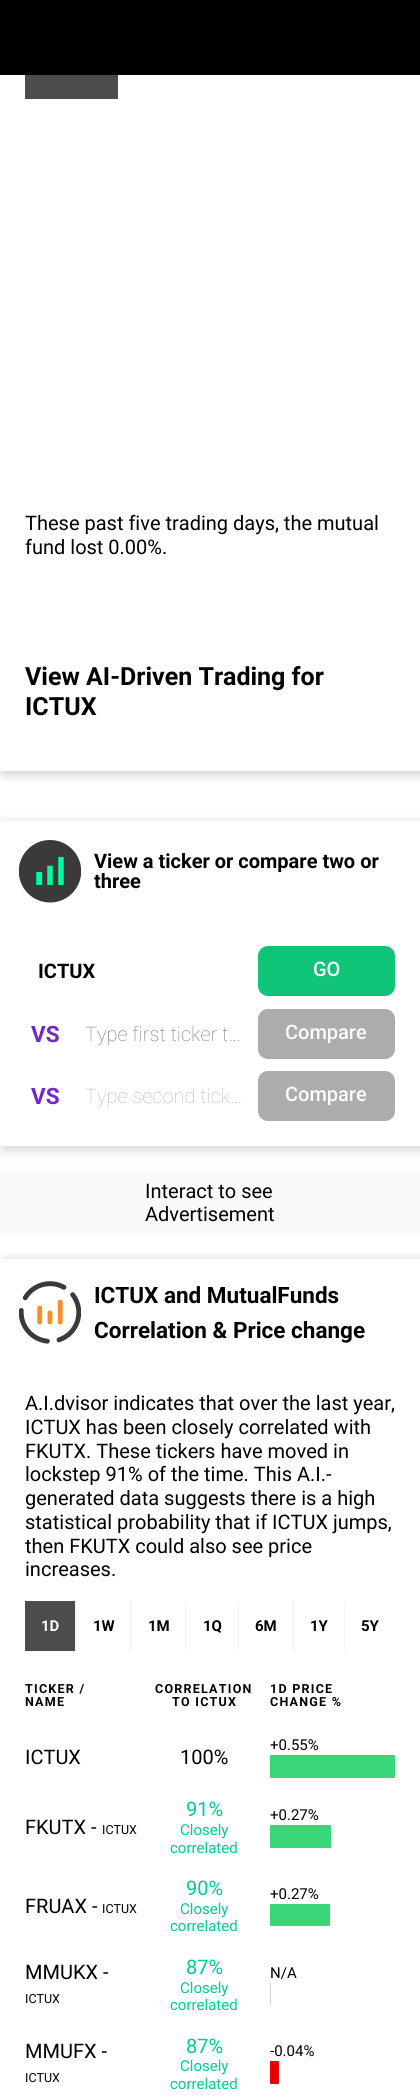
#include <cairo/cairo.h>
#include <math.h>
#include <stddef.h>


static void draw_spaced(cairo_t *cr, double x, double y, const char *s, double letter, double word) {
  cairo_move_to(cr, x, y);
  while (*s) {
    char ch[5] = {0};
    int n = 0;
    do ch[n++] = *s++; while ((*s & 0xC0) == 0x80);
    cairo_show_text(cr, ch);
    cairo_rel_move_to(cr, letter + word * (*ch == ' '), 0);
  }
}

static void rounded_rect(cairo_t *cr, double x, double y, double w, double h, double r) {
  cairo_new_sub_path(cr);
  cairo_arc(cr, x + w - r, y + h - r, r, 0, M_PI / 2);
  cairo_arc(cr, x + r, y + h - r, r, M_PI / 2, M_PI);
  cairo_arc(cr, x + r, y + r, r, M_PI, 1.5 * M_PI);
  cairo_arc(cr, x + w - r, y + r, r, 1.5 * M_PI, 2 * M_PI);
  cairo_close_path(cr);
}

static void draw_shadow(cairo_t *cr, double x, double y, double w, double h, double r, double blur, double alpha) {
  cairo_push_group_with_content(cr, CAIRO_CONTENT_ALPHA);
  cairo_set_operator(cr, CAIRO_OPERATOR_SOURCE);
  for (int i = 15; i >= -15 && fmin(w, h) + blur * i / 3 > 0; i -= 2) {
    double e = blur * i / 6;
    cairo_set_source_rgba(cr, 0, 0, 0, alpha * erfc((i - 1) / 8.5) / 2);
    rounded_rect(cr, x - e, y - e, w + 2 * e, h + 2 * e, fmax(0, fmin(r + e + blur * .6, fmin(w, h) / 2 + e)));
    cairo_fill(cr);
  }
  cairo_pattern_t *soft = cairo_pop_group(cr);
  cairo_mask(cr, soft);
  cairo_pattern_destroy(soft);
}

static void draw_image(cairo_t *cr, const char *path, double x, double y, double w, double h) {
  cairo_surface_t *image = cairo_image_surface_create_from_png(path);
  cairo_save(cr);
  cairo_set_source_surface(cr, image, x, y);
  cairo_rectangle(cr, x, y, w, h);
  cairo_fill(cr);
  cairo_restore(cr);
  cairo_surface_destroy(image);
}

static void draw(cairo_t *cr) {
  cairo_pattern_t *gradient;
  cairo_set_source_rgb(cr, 1, 1, 1);
  cairo_paint(cr);
  cairo_save(cr);
  cairo_rectangle(cr, 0, 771, 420, 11);
  cairo_clip(cr);
  cairo_set_source_rgb(cr, 0, 0, 0);
  draw_shadow(cr, 3, -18, 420, 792, 0, 6, 0.2);
  cairo_restore(cr);
  cairo_set_source_rgb(cr, 0, 0, 0);
  cairo_rectangle(cr, 0, 0, 420, 75);
  cairo_fill(cr);
  cairo_set_source_rgb(cr, 76 / 255.0, 76 / 255.0, 76 / 255.0);
  cairo_rectangle(cr, 25, 75, 93, 24);
  cairo_fill(cr);
  cairo_save(cr);
  cairo_set_fill_rule(cr, CAIRO_FILL_RULE_EVEN_ODD);
  cairo_new_path(cr);
  cairo_move_to(cr, 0, 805);
  cairo_line_to(cr, 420, 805);
  cairo_line_to(cr, 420, 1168);
  cairo_line_to(cr, 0, 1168);
  cairo_close_path(cr);
  cairo_move_to(cr, 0, 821);
  cairo_line_to(cr, 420, 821);
  cairo_line_to(cr, 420, 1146);
  cairo_line_to(cr, 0, 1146);
  cairo_close_path(cr);
  cairo_clip(cr);
  cairo_set_source_rgb(cr, 0, 0, 0);
  draw_shadow(cr, 3, 824, 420, 325, 0, 6, 0.2);
  cairo_restore(cr);
  draw_image(cr, "images/1.png", 19, 840, 62, 63);
  cairo_set_source_rgb(cr, 15 / 255.0, 196 / 255.0, 118 / 255.0);
  rounded_rect(cr, 258, 946, 137, 50, 10);
  cairo_fill(cr);
  cairo_set_source_rgb(cr, 172 / 255.0, 172 / 255.0, 172 / 255.0);
  rounded_rect(cr, 258, 1009, 137, 50, 10);
  cairo_fill(cr);
  rounded_rect(cr, 258, 1071, 137, 50, 10);
  cairo_fill(cr);
  gradient = cairo_pattern_create_linear(-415, 1236, 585, 1236);
  cairo_pattern_add_color_stop_rgba(gradient, 0.08, 250 / 255.0, 250 / 255.0, 250 / 255.0, 1);
  cairo_pattern_add_color_stop_rgba(gradient, 0.18, 221 / 255.0, 221 / 255.0, 221 / 255.0, 1);
  cairo_pattern_add_color_stop_rgba(gradient, 0.33, 250 / 255.0, 250 / 255.0, 250 / 255.0, 1);
  cairo_set_source(cr, gradient);
  cairo_pattern_destroy(gradient);
  cairo_rectangle(cr, 0, 1171, 420, 63);
  cairo_fill(cr);
  cairo_save(cr);
  cairo_rectangle(cr, 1, 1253, 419, 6);
  cairo_clip(cr);
  cairo_set_source_rgb(cr, 0, 0, 0);
  draw_shadow(cr, 3, 1261, 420, 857, 0, 6, 0.2);
  cairo_restore(cr);
  draw_image(cr, "images/2.png", 19, 1281, 62, 63);
  cairo_set_source_rgb(cr, 76 / 255.0, 76 / 255.0, 76 / 255.0);
  cairo_rectangle(cr, 25, 1601, 50, 50);
  cairo_fill(cr);
  cairo_set_source_rgb(cr, 243 / 255.0, 243 / 255.0, 243 / 255.0);
  cairo_rectangle(cr, 75, 1601, 1, 50);
  cairo_fill(cr);
  cairo_rectangle(cr, 130, 1601, 1, 50);
  cairo_fill(cr);
  cairo_rectangle(cr, 185, 1601, 1, 50);
  cairo_fill(cr);
  cairo_rectangle(cr, 238, 1601, 1, 50);
  cairo_fill(cr);
  cairo_rectangle(cr, 293, 1601, 1, 50);
  cairo_fill(cr);
  cairo_rectangle(cr, 344, 1601, 1, 50);
  cairo_fill(cr);
  cairo_set_source_rgb(cr, 57 / 255.0, 215 / 255.0, 120 / 255.0);
  rounded_rect(cr, 270, 1755, 125, 23, 1);
  cairo_fill(cr);
  rounded_rect(cr, 270, 1825, 61, 23, 1);
  cairo_fill(cr);
  rounded_rect(cr, 270, 1904, 60, 22, 1);
  cairo_fill(cr);
  cairo_set_source_rgb(cr, 214 / 255.0, 214 / 255.0, 214 / 255.0);
  rounded_rect(cr, 270, 1983, 1, 22, 0.5);
  cairo_fill(cr);
  cairo_set_source_rgb(cr, 235 / 255.0, 0, 0);
  rounded_rect(cr, 270, 2061, 9, 23, 1);
  cairo_fill(cr);
  cairo_select_font_face(cr, "Roboto", CAIRO_FONT_SLANT_NORMAL, CAIRO_FONT_WEIGHT_NORMAL);
  cairo_set_font_size(cr, 20);
  cairo_set_source_rgb(cr, 0, 0, 0);
  cairo_move_to(cr, 25, 530);
  cairo_show_text(cr, "These past five trading days, the mutual");
  cairo_move_to(cr, 25, 554);
  cairo_show_text(cr, "fund lost 0.00%.");
  cairo_select_font_face(cr, "Roboto", CAIRO_FONT_SLANT_NORMAL, CAIRO_FONT_WEIGHT_BOLD);
  cairo_set_font_size(cr, 25);
  cairo_move_to(cr, 25, 685);
  cairo_show_text(cr, "View AI-Driven Trading for");
  cairo_move_to(cr, 25, 715);
  cairo_show_text(cr, "ICTUX");
  cairo_set_font_size(cr, 20);
  cairo_move_to(cr, 94, 868);
  cairo_show_text(cr, "View a ticker or compare two or");
  cairo_move_to(cr, 94, 888);
  cairo_show_text(cr, "three");
  cairo_move_to(cr, 38, 978);
  cairo_show_text(cr, "ICTUX");
  cairo_select_font_face(cr, "Roboto Medium", CAIRO_FONT_SLANT_NORMAL, CAIRO_FONT_WEIGHT_NORMAL);
  cairo_set_source_rgb(cr, 1, 1, 1);
  cairo_move_to(cr, 313, 976);
  cairo_show_text(cr, "GO");
  cairo_select_font_face(cr, "Roboto", CAIRO_FONT_SLANT_NORMAL, CAIRO_FONT_WEIGHT_BOLD);
  cairo_set_font_size(cr, 22.5);
  cairo_set_source_rgb(cr, 112 / 255.0, 40 / 255.0, 207 / 255.0);
  cairo_move_to(cr, 31, 1042);
  cairo_show_text(cr, "VS");
  cairo_select_font_face(cr, "Roboto Thin", CAIRO_FONT_SLANT_NORMAL, CAIRO_FONT_WEIGHT_NORMAL);
  cairo_set_font_size(cr, 20);
  cairo_set_source_rgb(cr, 117 / 255.0, 117 / 255.0, 117 / 255.0);
  cairo_move_to(cr, 85, 1041);
  cairo_show_text(cr, "Type first ticker t…");
  cairo_select_font_face(cr, "Roboto Medium", CAIRO_FONT_SLANT_NORMAL, CAIRO_FONT_WEIGHT_NORMAL);
  cairo_set_source_rgb(cr, 1, 1, 1);
  cairo_move_to(cr, 285, 1039);
  cairo_show_text(cr, "Compare");
  cairo_select_font_face(cr, "Roboto", CAIRO_FONT_SLANT_NORMAL, CAIRO_FONT_WEIGHT_BOLD);
  cairo_set_font_size(cr, 22.5);
  cairo_set_source_rgb(cr, 112 / 255.0, 40 / 255.0, 207 / 255.0);
  cairo_move_to(cr, 31, 1104);
  cairo_show_text(cr, "VS");
  cairo_select_font_face(cr, "Roboto Thin", CAIRO_FONT_SLANT_NORMAL, CAIRO_FONT_WEIGHT_NORMAL);
  cairo_set_font_size(cr, 20);
  cairo_set_source_rgb(cr, 186 / 255.0, 186 / 255.0, 186 / 255.0);
  cairo_move_to(cr, 85, 1103);
  cairo_show_text(cr, "Type second tick…");
  cairo_select_font_face(cr, "Roboto Medium", CAIRO_FONT_SLANT_NORMAL, CAIRO_FONT_WEIGHT_NORMAL);
  cairo_set_source_rgb(cr, 1, 1, 1);
  cairo_move_to(cr, 285, 1101);
  cairo_show_text(cr, "Compare");
  cairo_select_font_face(cr, "Roboto", CAIRO_FONT_SLANT_NORMAL, CAIRO_FONT_WEIGHT_NORMAL);
  cairo_set_source_rgb(cr, 0, 0, 0);
  cairo_move_to(cr, 145, 1198);
  cairo_show_text(cr, "Interact to see");
  cairo_move_to(cr, 145, 1221);
  cairo_show_text(cr, "Advertisement");
  cairo_select_font_face(cr, "Roboto", CAIRO_FONT_SLANT_NORMAL, CAIRO_FONT_WEIGHT_BOLD);
  cairo_set_font_size(cr, 22.5);
  cairo_move_to(cr, 94, 1303);
  cairo_show_text(cr, "ICTUX and MutualFunds");
  cairo_move_to(cr, 94, 1338);
  cairo_show_text(cr, "Correlation & Price change");
  cairo_select_font_face(cr, "Roboto", CAIRO_FONT_SLANT_NORMAL, CAIRO_FONT_WEIGHT_NORMAL);
  cairo_set_font_size(cr, 20);
  cairo_move_to(cr, 25, 1410);
  cairo_show_text(cr, "A.I.dvisor indicates that over the last year,");
  cairo_move_to(cr, 25, 1434);
  cairo_show_text(cr, "ICTUX has been closely correlated with");
  cairo_move_to(cr, 25, 1458);
  cairo_show_text(cr, "FKUTX. These tickers have moved in");
  cairo_move_to(cr, 25, 1481);
  cairo_show_text(cr, "lockstep 91% of the time. This A.I.-");
  cairo_move_to(cr, 25, 1505);
  cairo_show_text(cr, "generated data suggests there is a high");
  cairo_move_to(cr, 25, 1529);
  cairo_show_text(cr, "statistical probability that if ICTUX jumps,");
  cairo_move_to(cr, 25, 1553);
  cairo_show_text(cr, "then FKUTX could also see price");
  cairo_move_to(cr, 25, 1576);
  cairo_show_text(cr, "increases.");
  cairo_select_font_face(cr, "Roboto", CAIRO_FONT_SLANT_NORMAL, CAIRO_FONT_WEIGHT_BOLD);
  cairo_set_font_size(cr, 15);
  cairo_set_source_rgb(cr, 1, 1, 1);
  cairo_move_to(cr, 41, 1631);
  cairo_show_text(cr, "1D");
  cairo_set_source_rgb(cr, 0, 0, 0);
  cairo_move_to(cr, 93, 1631);
  cairo_show_text(cr, "1W");
  cairo_move_to(cr, 148, 1631);
  cairo_show_text(cr, "1M");
  cairo_move_to(cr, 203, 1631);
  cairo_show_text(cr, "1Q");
  cairo_move_to(cr, 255, 1631);
  cairo_show_text(cr, "6M");
  cairo_move_to(cr, 310, 1631);
  cairo_show_text(cr, "1Y");
  cairo_move_to(cr, 361, 1631);
  cairo_show_text(cr, "5Y");
  cairo_set_font_size(cr, 12.5);
  draw_spaced(cr, 25, 1693, "TICKER /", 1.25, 0);
  draw_spaced(cr, 25, 1706, "NAME", 1.25, 0);
  draw_spaced(cr, 155, 1693, "CORRELATION", 1.25, 0);
  draw_spaced(cr, 172, 1706, "TO ICTUX", 1.25, 0);
  draw_spaced(cr, 270, 1693, "1D PRICE", 1.25, 0);
  draw_spaced(cr, 270, 1706, "CHANGE %", 1.25, 0);
  cairo_select_font_face(cr, "Roboto", CAIRO_FONT_SLANT_NORMAL, CAIRO_FONT_WEIGHT_NORMAL);
  cairo_set_font_size(cr, 15);
  cairo_move_to(cr, 270, 1750);
  cairo_show_text(cr, "+0.55%");
  cairo_set_font_size(cr, 20);
  cairo_move_to(cr, 25, 1764);
  cairo_show_text(cr, "ICTUX");
  cairo_move_to(cr, 180, 1764);
  cairo_show_text(cr, "100%");
  cairo_set_source_rgb(cr, 0, 203 / 255.0, 147 / 255.0);
  cairo_move_to(cr, 186, 1816);
  cairo_show_text(cr, "91%");
  cairo_set_font_size(cr, 15);
  cairo_move_to(cr, 180, 1835);
  cairo_show_text(cr, "Closely");
  cairo_move_to(cr, 170, 1853);
  cairo_show_text(cr, "correlated");
  cairo_set_source_rgb(cr, 0, 0, 0);
  cairo_move_to(cr, 270, 1820);
  cairo_show_text(cr, "+0.27%");
  cairo_set_font_size(cr, 20);
  cairo_move_to(cr, 25, 1834);
  cairo_show_text(cr, "FKUTX -");
  cairo_set_font_size(cr, 12.5);
  cairo_move_to(cr, 102, 1834);
  cairo_show_text(cr, "ICTUX");
  cairo_set_font_size(cr, 20);
  cairo_set_source_rgb(cr, 0, 203 / 255.0, 147 / 255.0);
  cairo_move_to(cr, 186, 1895);
  cairo_show_text(cr, "90%");
  cairo_set_font_size(cr, 15);
  cairo_move_to(cr, 180, 1914);
  cairo_show_text(cr, "Closely");
  cairo_move_to(cr, 170, 1931);
  cairo_show_text(cr, "correlated");
  cairo_set_source_rgb(cr, 0, 0, 0);
  cairo_move_to(cr, 270, 1899);
  cairo_show_text(cr, "+0.27%");
  cairo_set_font_size(cr, 20);
  cairo_move_to(cr, 25, 1913);
  cairo_show_text(cr, "FRUAX -");
  cairo_set_font_size(cr, 12.5);
  cairo_move_to(cr, 102, 1913);
  cairo_show_text(cr, "ICTUX");
  cairo_set_font_size(cr, 20);
  cairo_move_to(cr, 25, 1979);
  cairo_show_text(cr, "MMUKX -");
  cairo_set_font_size(cr, 12.5);
  cairo_move_to(cr, 25, 2003);
  cairo_show_text(cr, "ICTUX");
  cairo_set_font_size(cr, 20);
  cairo_set_source_rgb(cr, 0, 203 / 255.0, 147 / 255.0);
  cairo_move_to(cr, 186, 1974);
  cairo_show_text(cr, "87%");
  cairo_set_font_size(cr, 15);
  cairo_move_to(cr, 180, 1993);
  cairo_show_text(cr, "Closely");
  cairo_move_to(cr, 170, 2010);
  cairo_show_text(cr, "correlated");
  cairo_set_source_rgb(cr, 0, 0, 0);
  cairo_move_to(cr, 270, 1978);
  cairo_show_text(cr, "N/A");
  cairo_set_font_size(cr, 20);
  cairo_move_to(cr, 25, 2058);
  cairo_show_text(cr, "MMUFX -");
  cairo_set_font_size(cr, 12.5);
  cairo_move_to(cr, 25, 2082);
  cairo_show_text(cr, "ICTUX");
  cairo_set_font_size(cr, 20);
  cairo_set_source_rgb(cr, 0, 203 / 255.0, 147 / 255.0);
  cairo_move_to(cr, 186, 2053);
  cairo_show_text(cr, "87%");
  cairo_set_font_size(cr, 15);
  cairo_move_to(cr, 180, 2071);
  cairo_show_text(cr, "Closely");
  cairo_move_to(cr, 170, 2089);
  cairo_show_text(cr, "correlated");
  cairo_set_source_rgb(cr, 0, 0, 0);
  cairo_move_to(cr, 270, 2056);
  cairo_show_text(cr, "-0.04%");
}

int main(void) {
  cairo_surface_t *surface = cairo_image_surface_create(CAIRO_FORMAT_RGB24, 420, 2100);
  cairo_t *cr = cairo_create(surface);
  cairo_font_options_t *options = cairo_font_options_create();
  cairo_font_options_set_hint_metrics(options, CAIRO_HINT_METRICS_OFF);
  cairo_font_options_set_hint_style(options, CAIRO_HINT_STYLE_NONE);
  cairo_set_font_options(cr, options);
  cairo_set_miter_limit(cr, 4);
  draw(cr);
  cairo_surface_write_to_png(surface, "out.png");
  cairo_font_options_destroy(options);
  cairo_destroy(cr);
  cairo_surface_destroy(surface);
  return 0;
}
